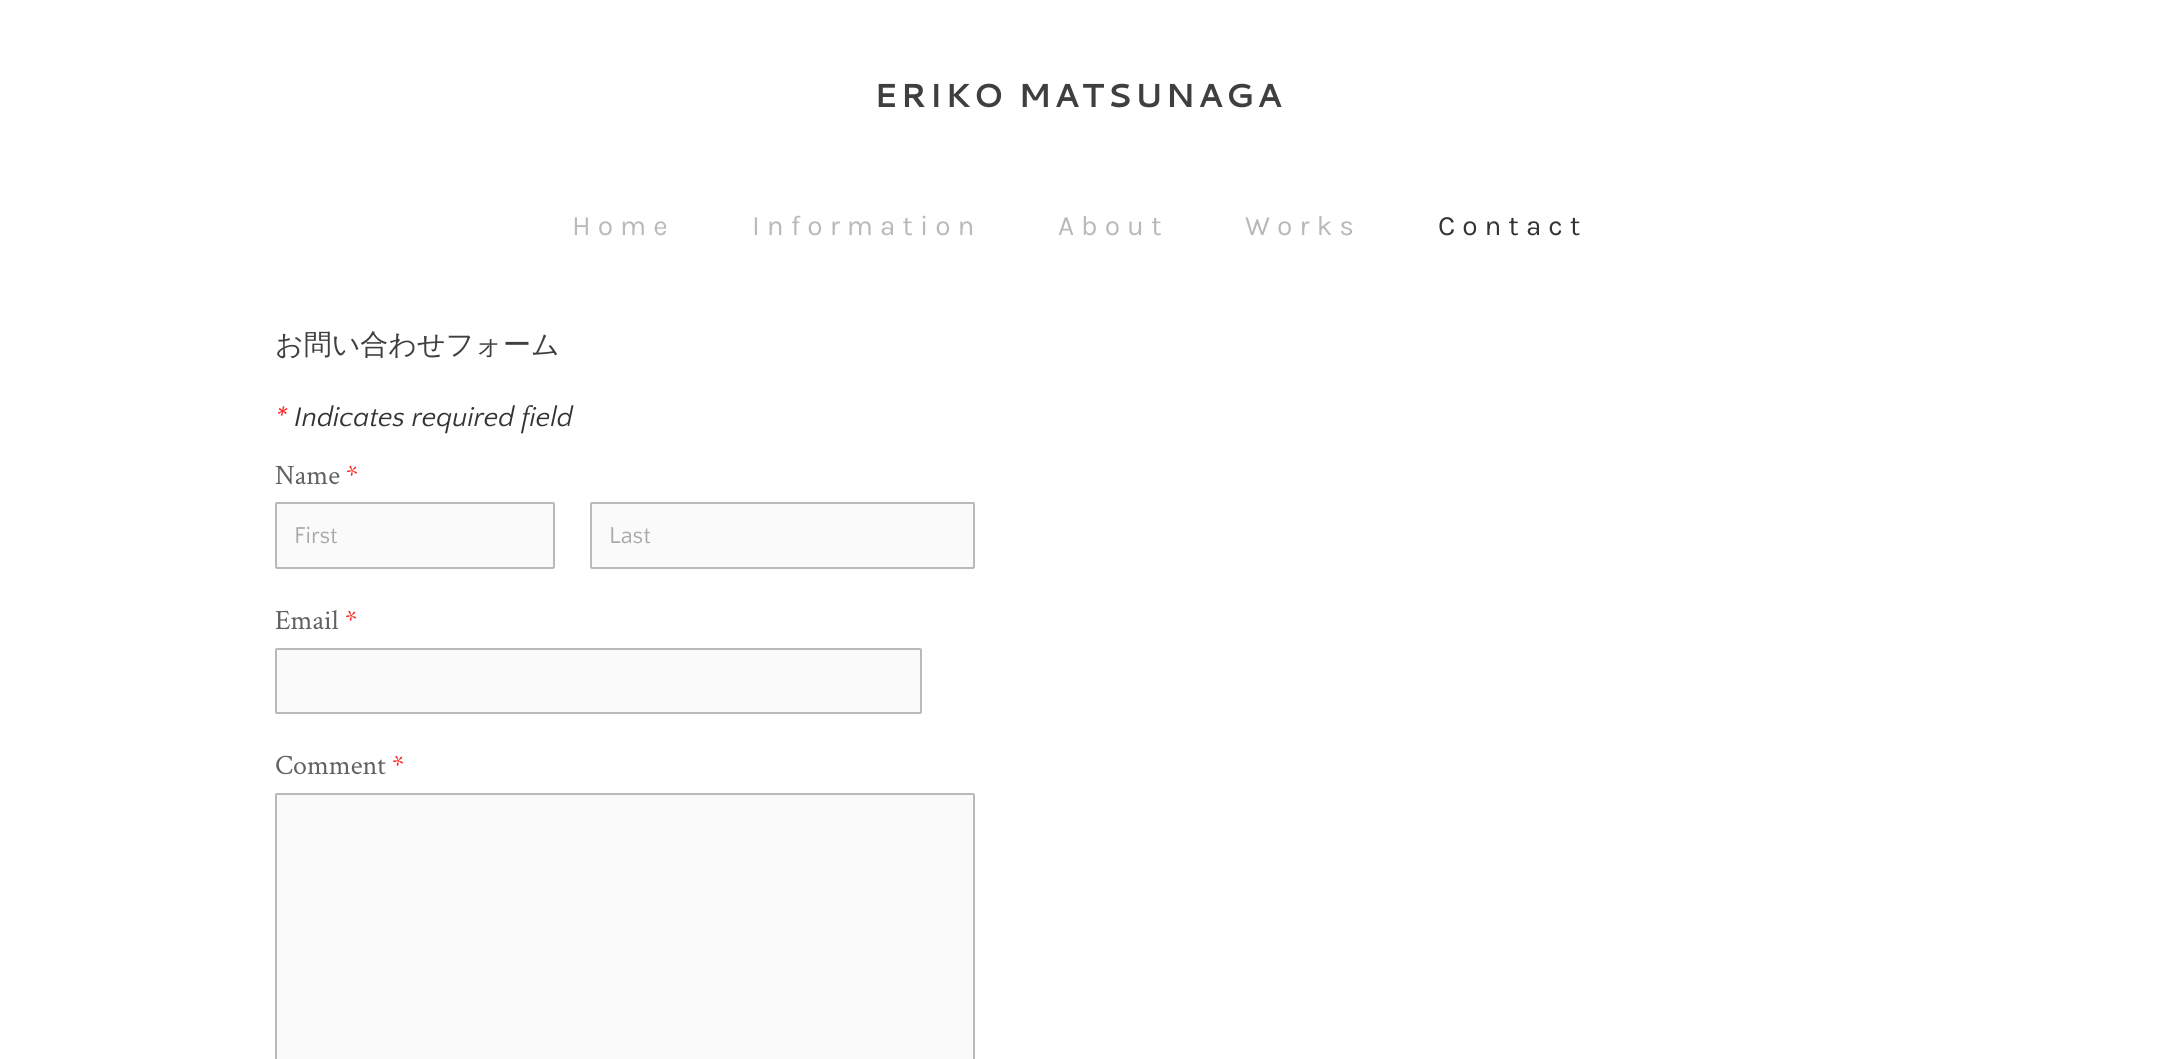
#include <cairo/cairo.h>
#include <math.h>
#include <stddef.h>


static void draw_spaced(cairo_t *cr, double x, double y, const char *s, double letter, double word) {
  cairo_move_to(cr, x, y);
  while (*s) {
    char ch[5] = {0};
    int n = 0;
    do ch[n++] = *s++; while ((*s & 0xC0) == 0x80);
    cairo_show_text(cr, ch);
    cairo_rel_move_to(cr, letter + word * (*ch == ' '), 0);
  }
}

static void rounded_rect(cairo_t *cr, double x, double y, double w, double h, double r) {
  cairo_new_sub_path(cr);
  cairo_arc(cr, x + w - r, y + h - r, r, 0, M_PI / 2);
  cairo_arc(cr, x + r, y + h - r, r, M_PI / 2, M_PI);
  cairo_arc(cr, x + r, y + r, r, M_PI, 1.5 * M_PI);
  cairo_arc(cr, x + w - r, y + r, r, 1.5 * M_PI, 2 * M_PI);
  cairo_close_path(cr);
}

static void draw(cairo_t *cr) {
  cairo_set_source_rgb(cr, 1, 1, 1);
  cairo_paint(cr);
  cairo_set_source_rgb(cr, 250 / 255.0, 250 / 255.0, 250 / 255.0);
  rounded_rect(cr, 276, 503, 278, 65, 1);
  cairo_fill_preserve(cr);
  cairo_set_source_rgb(cr, 185 / 255.0, 185 / 255.0, 185 / 255.0);
  cairo_stroke(cr);
  cairo_set_source_rgb(cr, 250 / 255.0, 250 / 255.0, 250 / 255.0);
  rounded_rect(cr, 591, 503, 383, 65, 1);
  cairo_fill_preserve(cr);
  cairo_set_source_rgb(cr, 185 / 255.0, 185 / 255.0, 185 / 255.0);
  cairo_stroke(cr);
  cairo_set_source_rgb(cr, 250 / 255.0, 250 / 255.0, 250 / 255.0);
  rounded_rect(cr, 276, 649, 645, 64, 1);
  cairo_fill_preserve(cr);
  cairo_set_source_rgb(cr, 185 / 255.0, 185 / 255.0, 185 / 255.0);
  cairo_stroke(cr);
  cairo_set_source_rgb(cr, 250 / 255.0, 250 / 255.0, 250 / 255.0);
  rounded_rect(cr, 276, 794, 698, 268, 1);
  cairo_fill_preserve(cr);
  cairo_set_source_rgb(cr, 185 / 255.0, 185 / 255.0, 185 / 255.0);
  cairo_stroke(cr);
  cairo_select_font_face(cr, "Cantarell", CAIRO_FONT_SLANT_NORMAL, CAIRO_FONT_WEIGHT_BOLD);
  cairo_set_font_size(cr, 33.25);
  cairo_set_source_rgb(cr, 63 / 255.0, 63 / 255.0, 63 / 255.0);
  draw_spaced(cr, 874, 107, "ERIKO MATSUNAGA", 2.75, 0);
  cairo_select_font_face(cr, "Karla", CAIRO_FONT_SLANT_NORMAL, CAIRO_FONT_WEIGHT_NORMAL);
  cairo_set_font_size(cr, 28);
  cairo_set_source_rgb(cr, 185 / 255.0, 185 / 255.0, 185 / 255.0);
  draw_spaced(cr, 572, 235, "Home", 7, 0);
  draw_spaced(cr, 752, 235, "Information", 7, 0);
  draw_spaced(cr, 1058, 235, "About", 7, 0);
  draw_spaced(cr, 1245, 235, "Works", 7, 0);
  cairo_set_source_rgb(cr, 51 / 255.0, 51 / 255.0, 51 / 255.0);
  draw_spaced(cr, 1438, 235, "Contact", 7, 0);
  cairo_select_font_face(cr, "WenQuanYi Zen Hei Medium", CAIRO_FONT_SLANT_NORMAL, CAIRO_FONT_WEIGHT_NORMAL);
  cairo_set_source_rgb(cr, 63 / 255.0, 63 / 255.0, 63 / 255.0);
  cairo_move_to(cr, 275, 354);
  cairo_show_text(cr, "お問い合わせフォーム");
  cairo_select_font_face(cr, "Quattrocento Sans", CAIRO_FONT_SLANT_ITALIC, CAIRO_FONT_WEIGHT_NORMAL);
  cairo_set_source_rgb(cr, 1, 40 / 255.0, 37 / 255.0);
  cairo_move_to(cr, 275, 426);
  cairo_show_text(cr, "*");
  cairo_set_source_rgb(cr, 51 / 255.0, 51 / 255.0, 51 / 255.0);
  cairo_move_to(cr, 294, 426);
  cairo_show_text(cr, "Indicates required field");
  cairo_select_font_face(cr, "Crimson Text", CAIRO_FONT_SLANT_NORMAL, CAIRO_FONT_WEIGHT_NORMAL);
  cairo_set_source_rgb(cr, 98 / 255.0, 98 / 255.0, 98 / 255.0);
  cairo_move_to(cr, 275, 484);
  cairo_show_text(cr, "Name");
  cairo_set_source_rgb(cr, 1, 40 / 255.0, 37 / 255.0);
  cairo_move_to(cr, 346, 484);
  cairo_show_text(cr, "*");
  cairo_select_font_face(cr, "Quattrocento Sans", CAIRO_FONT_SLANT_NORMAL, CAIRO_FONT_WEIGHT_NORMAL);
  cairo_set_font_size(cr, 24);
  cairo_set_source_rgb(cr, 169 / 255.0, 169 / 255.0, 169 / 255.0);
  cairo_move_to(cr, 294, 543);
  cairo_show_text(cr, "First");
  cairo_move_to(cr, 609, 543);
  cairo_show_text(cr, "Last");
  cairo_select_font_face(cr, "Crimson Text", CAIRO_FONT_SLANT_NORMAL, CAIRO_FONT_WEIGHT_NORMAL);
  cairo_set_font_size(cr, 28);
  cairo_set_source_rgb(cr, 98 / 255.0, 98 / 255.0, 98 / 255.0);
  cairo_move_to(cr, 275, 629);
  cairo_show_text(cr, "Email");
  cairo_set_source_rgb(cr, 1, 40 / 255.0, 37 / 255.0);
  cairo_move_to(cr, 345, 629);
  cairo_show_text(cr, "*");
  cairo_set_source_rgb(cr, 98 / 255.0, 98 / 255.0, 98 / 255.0);
  cairo_move_to(cr, 275, 774);
  cairo_show_text(cr, "Comment");
  cairo_set_source_rgb(cr, 1, 40 / 255.0, 37 / 255.0);
  cairo_move_to(cr, 392, 774);
  cairo_show_text(cr, "*");
}

int main(void) {
  cairo_surface_t *surface = cairo_image_surface_create(CAIRO_FORMAT_RGB24, 2158, 1059);
  cairo_t *cr = cairo_create(surface);
  cairo_font_options_t *options = cairo_font_options_create();
  cairo_font_options_set_hint_metrics(options, CAIRO_HINT_METRICS_OFF);
  cairo_font_options_set_hint_style(options, CAIRO_HINT_STYLE_NONE);
  cairo_set_font_options(cr, options);
  cairo_set_miter_limit(cr, 4);
  draw(cr);
  cairo_surface_write_to_png(surface, "out.png");
  cairo_font_options_destroy(options);
  cairo_destroy(cr);
  cairo_surface_destroy(surface);
  return 0;
}
